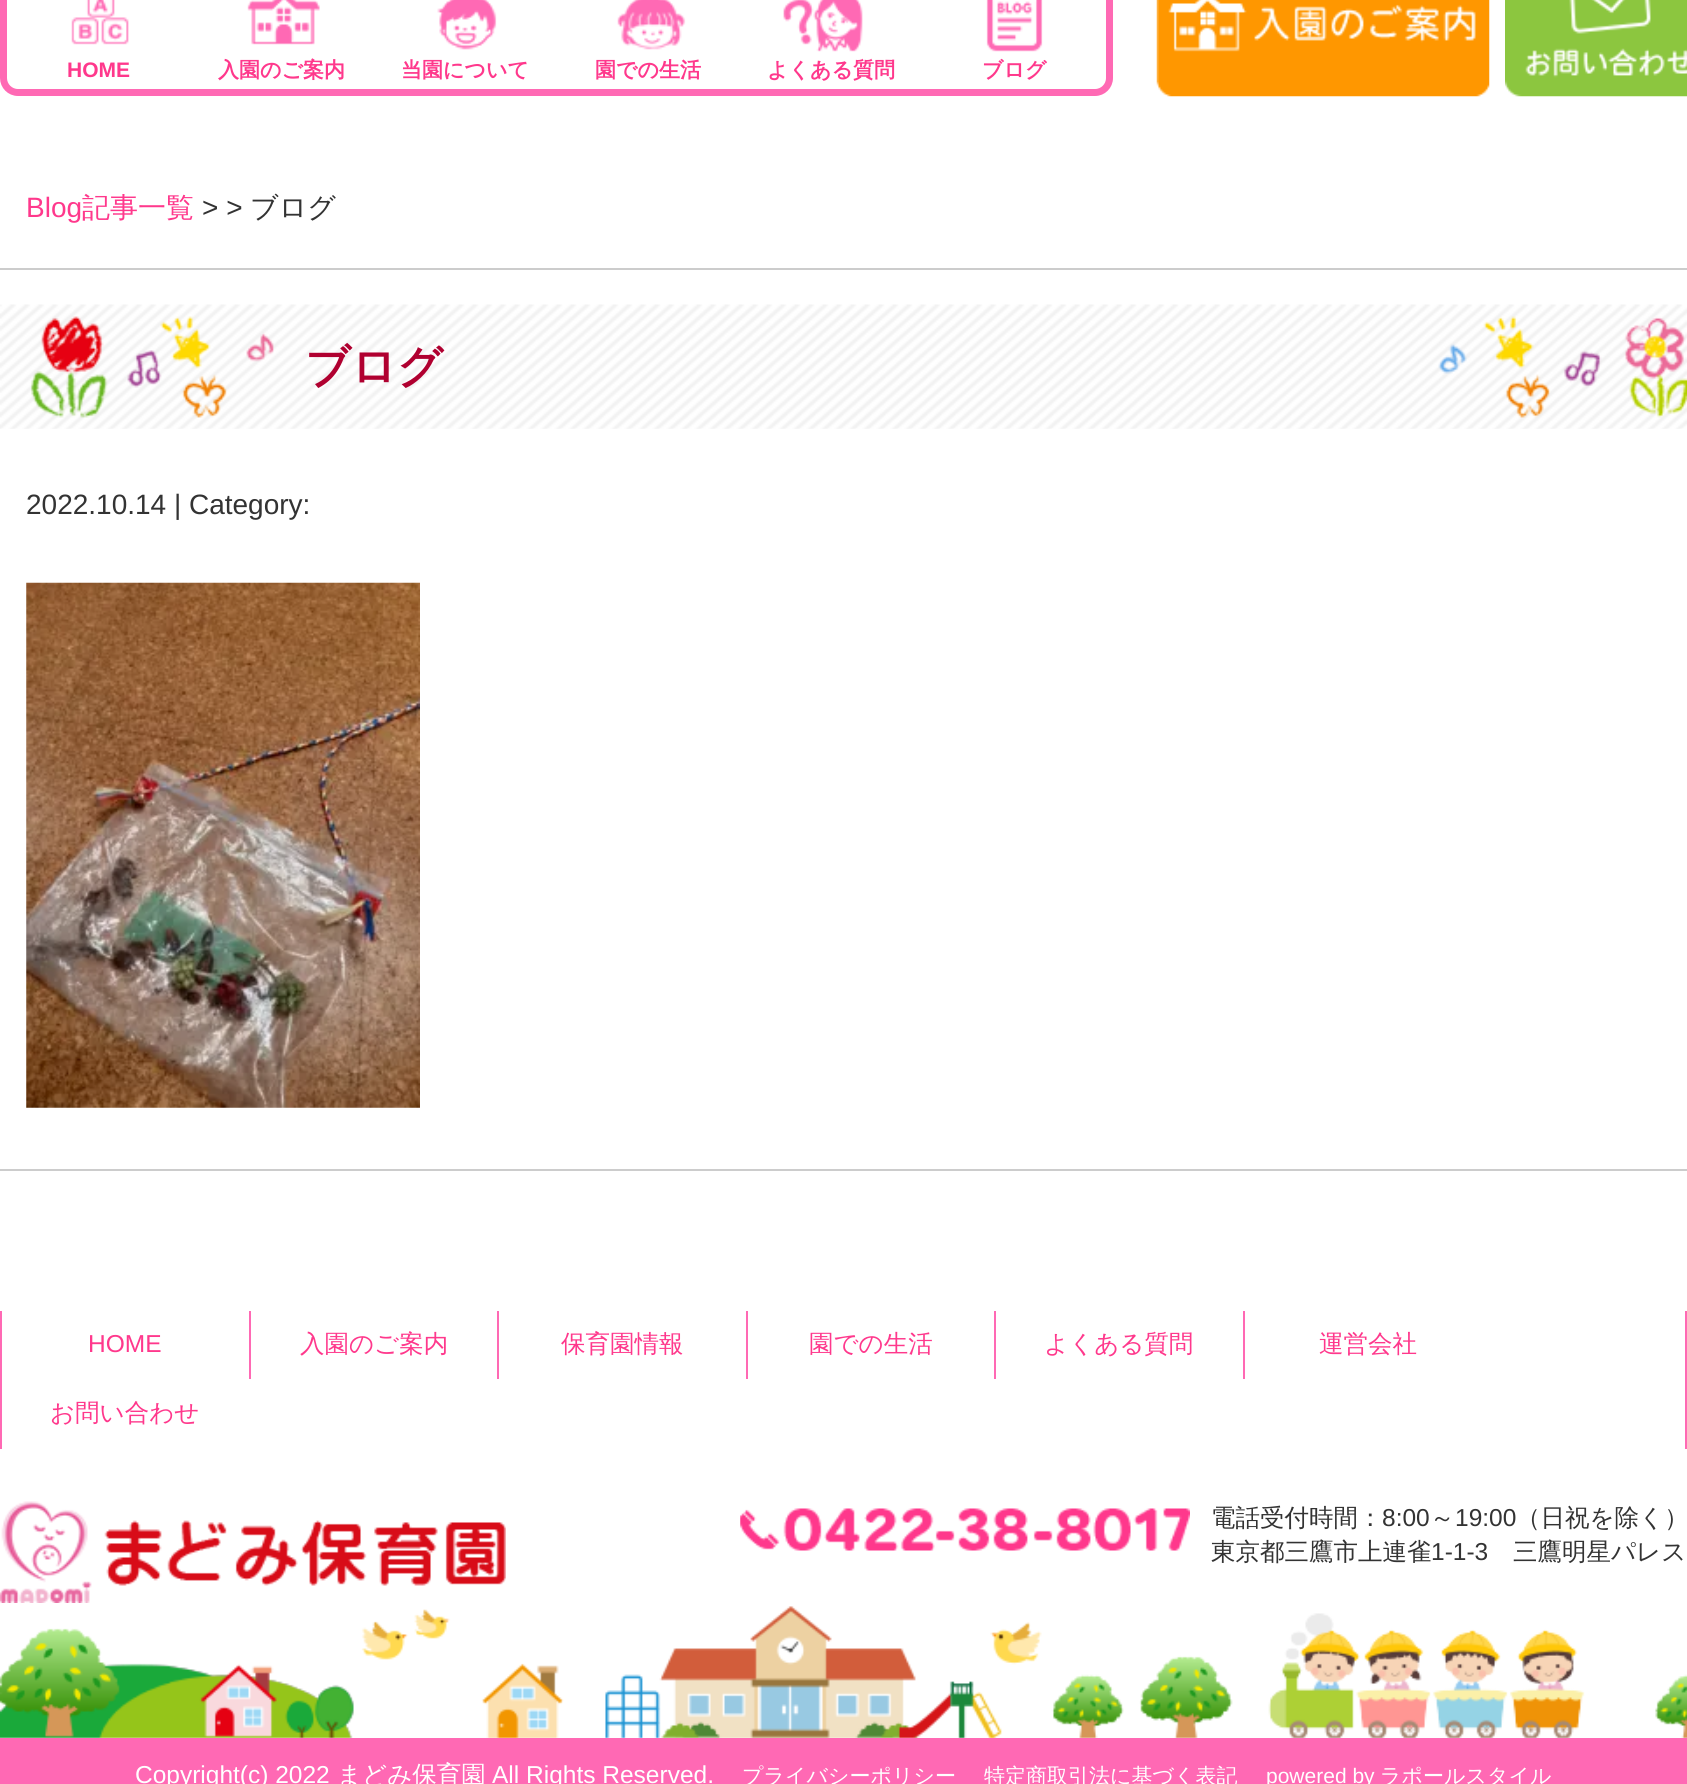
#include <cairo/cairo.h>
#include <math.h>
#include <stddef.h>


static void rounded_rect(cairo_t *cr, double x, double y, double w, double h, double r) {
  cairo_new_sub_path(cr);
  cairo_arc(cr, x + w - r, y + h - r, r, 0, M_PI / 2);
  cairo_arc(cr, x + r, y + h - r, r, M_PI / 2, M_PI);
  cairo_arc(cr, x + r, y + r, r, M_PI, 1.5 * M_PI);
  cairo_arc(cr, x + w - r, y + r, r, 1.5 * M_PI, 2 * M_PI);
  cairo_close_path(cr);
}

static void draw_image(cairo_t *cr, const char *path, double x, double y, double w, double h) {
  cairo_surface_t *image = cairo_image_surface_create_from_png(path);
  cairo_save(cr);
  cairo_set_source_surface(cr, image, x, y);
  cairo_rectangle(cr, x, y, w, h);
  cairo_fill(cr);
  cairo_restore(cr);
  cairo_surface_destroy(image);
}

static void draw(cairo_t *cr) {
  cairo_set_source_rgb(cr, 1, 1, 1);
  cairo_paint(cr);
  rounded_rect(cr, 3.5, -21.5, 1106, 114, 14.5);
  cairo_set_source_rgb(cr, 1, 105 / 255.0, 180 / 255.0);
  cairo_set_line_width(cr, 7);
  cairo_stroke(cr);
  draw_image(cr, "images/1.png", 71, 0, 58, 45);
  draw_image(cr, "images/2.png", 247, 0, 73, 45);
  draw_image(cr, "images/3.png", 437, 0, 60, 50);
  draw_image(cr, "images/4.png", 617, 0, 69, 50);
  draw_image(cr, "images/5.png", 783, 0, 80, 52);
  draw_image(cr, "images/6.png", 986, 0, 57, 52);
  draw_image(cr, "images/7.png", 1156, 0, 334, 97);
  draw_image(cr, "images/8.png", 1505, 0, 182, 97);
  cairo_set_source_rgb(cr, 204 / 255.0, 204 / 255.0, 204 / 255.0);
  cairo_rectangle(cr, 0, 268, 1687, 2);
  cairo_fill(cr);
  draw_image(cr, "images/9.png", 0, 304, 1687, 125);
  cairo_rectangle(cr, 0, 1169, 1687, 2);
  cairo_fill(cr);
  draw_image(cr, "images/10.png", 26, 582, 394, 526);
  cairo_set_source_rgb(cr, 1, 105 / 255.0, 180 / 255.0);
  cairo_rectangle(cr, 1685, 1311, 2, 138);
  cairo_fill(cr);
  cairo_rectangle(cr, 0, 1311, 2, 138);
  cairo_fill(cr);
  cairo_rectangle(cr, 249, 1311, 2, 68);
  cairo_fill(cr);
  cairo_rectangle(cr, 497, 1311, 2, 68);
  cairo_fill(cr);
  cairo_rectangle(cr, 746, 1311, 2, 68);
  cairo_fill(cr);
  cairo_rectangle(cr, 994, 1311, 2, 68);
  cairo_fill(cr);
  cairo_rectangle(cr, 1243, 1311, 2, 68);
  cairo_fill(cr);
  draw_image(cr, "images/11.png", 0, 1606, 1687, 132);
  draw_image(cr, "images/12.png", 0, 1501, 506, 102);
  draw_image(cr, "images/13.png", 740, 1508, 450, 43);
  cairo_rectangle(cr, 0, 1738, 1687, 46);
  cairo_fill(cr);
  cairo_select_font_face(cr, "Liberation Sans", CAIRO_FONT_SLANT_NORMAL, CAIRO_FONT_WEIGHT_BOLD);
  cairo_set_font_size(cr, 21);
  cairo_set_source_rgb(cr, 1, 56 / 255.0, 140 / 255.0);
  cairo_move_to(cr, 67, 77);
  cairo_show_text(cr, "HOME");
  cairo_select_font_face(cr, "WenQuanYi Zen Hei", CAIRO_FONT_SLANT_NORMAL, CAIRO_FONT_WEIGHT_BOLD);
  cairo_move_to(cr, 218, 77);
  cairo_show_text(cr, "入園のご案内");
  cairo_move_to(cr, 401, 77);
  cairo_show_text(cr, "当園について");
  cairo_move_to(cr, 595, 77);
  cairo_show_text(cr, "園での生活");
  cairo_move_to(cr, 767, 77);
  cairo_show_text(cr, "よくある質問");
  cairo_move_to(cr, 982, 77);
  cairo_show_text(cr, "ブログ");
  cairo_select_font_face(cr, "Liberation Sans", CAIRO_FONT_SLANT_NORMAL, CAIRO_FONT_WEIGHT_NORMAL);
  cairo_set_font_size(cr, 28);
  cairo_move_to(cr, 26, 217);
  cairo_show_text(cr, "Blog");
  cairo_select_font_face(cr, "WenQuanYi Zen Hei Medium", CAIRO_FONT_SLANT_NORMAL, CAIRO_FONT_WEIGHT_NORMAL);
  cairo_move_to(cr, 82, 217);
  cairo_show_text(cr, "記事一覧");
  cairo_select_font_face(cr, "Liberation Sans", CAIRO_FONT_SLANT_NORMAL, CAIRO_FONT_WEIGHT_NORMAL);
  cairo_set_source_rgb(cr, 51 / 255.0, 51 / 255.0, 51 / 255.0);
  cairo_move_to(cr, 202, 217);
  cairo_show_text(cr, "> >");
  cairo_select_font_face(cr, "WenQuanYi Zen Hei Medium", CAIRO_FONT_SLANT_NORMAL, CAIRO_FONT_WEIGHT_NORMAL);
  cairo_move_to(cr, 250, 217);
  cairo_show_text(cr, "ブログ");
  cairo_select_font_face(cr, "WenQuanYi Zen Hei", CAIRO_FONT_SLANT_NORMAL, CAIRO_FONT_WEIGHT_BOLD);
  cairo_set_font_size(cr, 45);
  cairo_set_source_rgb(cr, 176 / 255.0, 0, 48 / 255.0);
  cairo_move_to(cr, 305, 382);
  cairo_show_text(cr, "ブログ");
  cairo_select_font_face(cr, "Liberation Sans", CAIRO_FONT_SLANT_NORMAL, CAIRO_FONT_WEIGHT_NORMAL);
  cairo_set_font_size(cr, 28);
  cairo_set_source_rgb(cr, 51 / 255.0, 51 / 255.0, 51 / 255.0);
  cairo_move_to(cr, 26, 514);
  cairo_show_text(cr, "2022.10.14 | Category:");
  cairo_set_font_size(cr, 24.5);
  cairo_set_source_rgb(cr, 1, 56 / 255.0, 140 / 255.0);
  cairo_move_to(cr, 88, 1352);
  cairo_show_text(cr, "HOME");
  cairo_select_font_face(cr, "WenQuanYi Zen Hei Medium", CAIRO_FONT_SLANT_NORMAL, CAIRO_FONT_WEIGHT_NORMAL);
  cairo_move_to(cr, 300, 1352);
  cairo_show_text(cr, "入園のご案内");
  cairo_move_to(cr, 561, 1352);
  cairo_show_text(cr, "保育園情報");
  cairo_move_to(cr, 809, 1352);
  cairo_show_text(cr, "園での生活");
  cairo_move_to(cr, 1044, 1352);
  cairo_show_text(cr, "よくある質問");
  cairo_move_to(cr, 1319, 1352);
  cairo_show_text(cr, "運営会社");
  cairo_move_to(cr, 50, 1421);
  cairo_show_text(cr, "お問い合わせ");
  cairo_set_source_rgb(cr, 51 / 255.0, 51 / 255.0, 51 / 255.0);
  cairo_move_to(cr, 1211, 1526);
  cairo_show_text(cr, "電話受付時間：");
  cairo_select_font_face(cr, "Liberation Sans", CAIRO_FONT_SLANT_NORMAL, CAIRO_FONT_WEIGHT_NORMAL);
  cairo_move_to(cr, 1382, 1526);
  cairo_show_text(cr, "8:00");
  cairo_select_font_face(cr, "WenQuanYi Zen Hei Medium", CAIRO_FONT_SLANT_NORMAL, CAIRO_FONT_WEIGHT_NORMAL);
  cairo_move_to(cr, 1430, 1526);
  cairo_show_text(cr, "～");
  cairo_select_font_face(cr, "Liberation Sans", CAIRO_FONT_SLANT_NORMAL, CAIRO_FONT_WEIGHT_NORMAL);
  cairo_move_to(cr, 1455, 1526);
  cairo_show_text(cr, "19:00");
  cairo_select_font_face(cr, "WenQuanYi Zen Hei Medium", CAIRO_FONT_SLANT_NORMAL, CAIRO_FONT_WEIGHT_NORMAL);
  cairo_move_to(cr, 1516, 1526);
  cairo_show_text(cr, "（日祝を除く）");
  cairo_move_to(cr, 1211, 1560);
  cairo_show_text(cr, "東京都三鷹市上連雀");
  cairo_select_font_face(cr, "Liberation Sans", CAIRO_FONT_SLANT_NORMAL, CAIRO_FONT_WEIGHT_NORMAL);
  cairo_move_to(cr, 1431, 1560);
  cairo_show_text(cr, "1-1-3");
  cairo_select_font_face(cr, "WenQuanYi Zen Hei Medium", CAIRO_FONT_SLANT_NORMAL, CAIRO_FONT_WEIGHT_NORMAL);
  cairo_move_to(cr, 1513, 1560);
  cairo_show_text(cr, "三鷹明星パレス");
  cairo_select_font_face(cr, "Liberation Sans", CAIRO_FONT_SLANT_NORMAL, CAIRO_FONT_WEIGHT_NORMAL);
  cairo_set_source_rgb(cr, 1, 1, 1);
  cairo_move_to(cr, 135, 1783);
  cairo_show_text(cr, "Copyright(c) 2022");
  cairo_select_font_face(cr, "WenQuanYi Zen Hei Medium", CAIRO_FONT_SLANT_NORMAL, CAIRO_FONT_WEIGHT_NORMAL);
  cairo_move_to(cr, 337, 1783);
  cairo_show_text(cr, "まどみ保育園");
  cairo_select_font_face(cr, "Liberation Sans", CAIRO_FONT_SLANT_NORMAL, CAIRO_FONT_WEIGHT_NORMAL);
  cairo_move_to(cr, 492, 1783);
  cairo_show_text(cr, "All Rights Reserved.");
  cairo_select_font_face(cr, "WenQuanYi Zen Hei Medium", CAIRO_FONT_SLANT_NORMAL, CAIRO_FONT_WEIGHT_NORMAL);
  cairo_set_font_size(cr, 21);
  cairo_move_to(cr, 742, 1783);
  cairo_show_text(cr, "プライバシーポリシー");
  cairo_move_to(cr, 984, 1783);
  cairo_show_text(cr, "特定商取引法に基づく表記");
  cairo_select_font_face(cr, "Liberation Sans", CAIRO_FONT_SLANT_NORMAL, CAIRO_FONT_WEIGHT_NORMAL);
  cairo_move_to(cr, 1266, 1783);
  cairo_show_text(cr, "powered by");
  cairo_select_font_face(cr, "WenQuanYi Zen Hei Medium", CAIRO_FONT_SLANT_NORMAL, CAIRO_FONT_WEIGHT_NORMAL);
  cairo_move_to(cr, 1380, 1783);
  cairo_show_text(cr, "ラポールスタイル");
}

int main(void) {
  cairo_surface_t *surface = cairo_image_surface_create(CAIRO_FORMAT_RGB24, 1687, 1784);
  cairo_t *cr = cairo_create(surface);
  cairo_font_options_t *options = cairo_font_options_create();
  cairo_font_options_set_hint_metrics(options, CAIRO_HINT_METRICS_OFF);
  cairo_font_options_set_hint_style(options, CAIRO_HINT_STYLE_NONE);
  cairo_set_font_options(cr, options);
  cairo_set_miter_limit(cr, 4);
  draw(cr);
  cairo_surface_write_to_png(surface, "out.png");
  cairo_font_options_destroy(options);
  cairo_destroy(cr);
  cairo_surface_destroy(surface);
  return 0;
}
